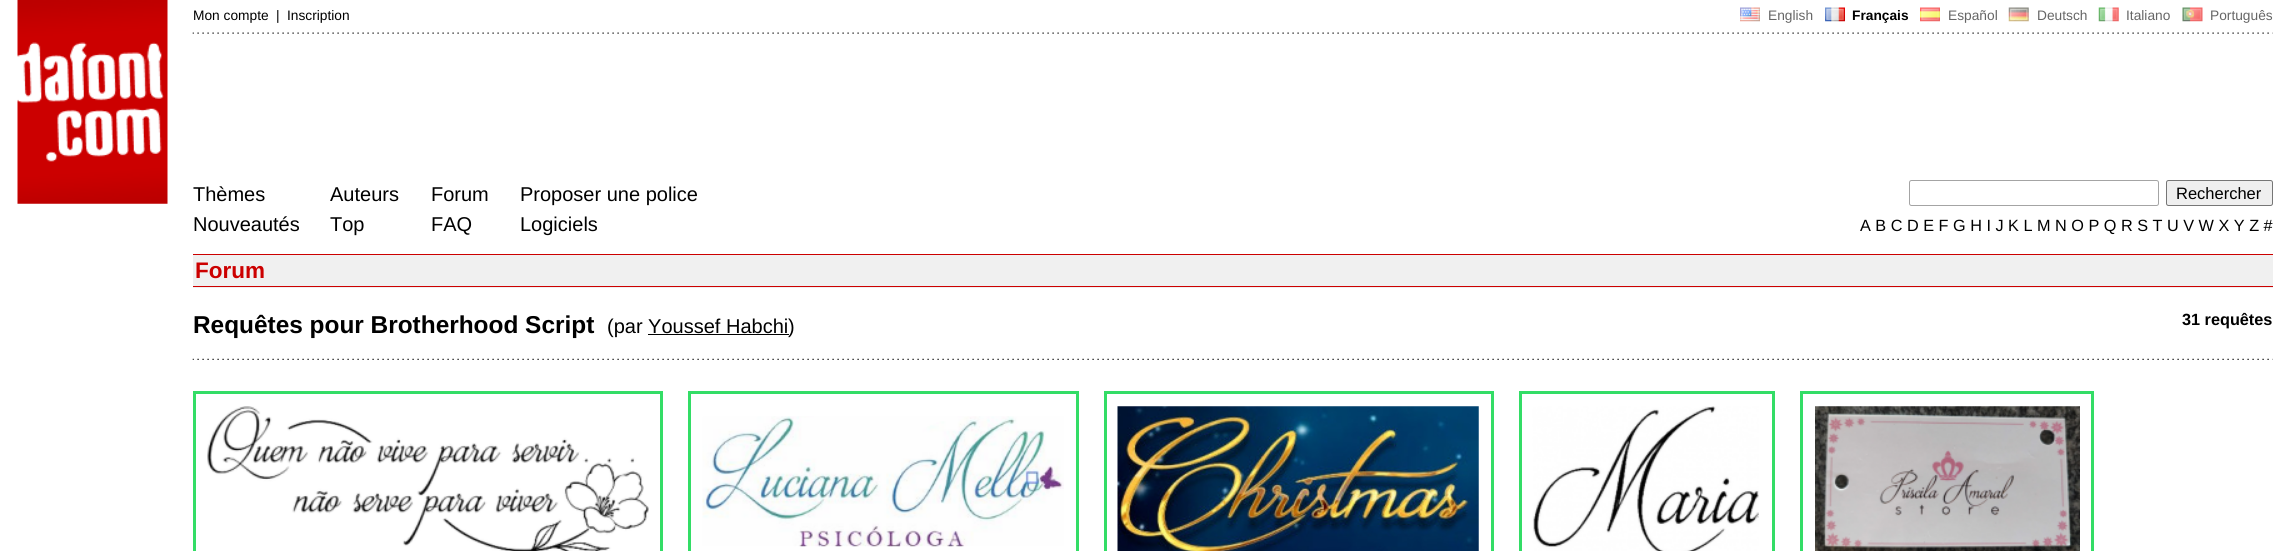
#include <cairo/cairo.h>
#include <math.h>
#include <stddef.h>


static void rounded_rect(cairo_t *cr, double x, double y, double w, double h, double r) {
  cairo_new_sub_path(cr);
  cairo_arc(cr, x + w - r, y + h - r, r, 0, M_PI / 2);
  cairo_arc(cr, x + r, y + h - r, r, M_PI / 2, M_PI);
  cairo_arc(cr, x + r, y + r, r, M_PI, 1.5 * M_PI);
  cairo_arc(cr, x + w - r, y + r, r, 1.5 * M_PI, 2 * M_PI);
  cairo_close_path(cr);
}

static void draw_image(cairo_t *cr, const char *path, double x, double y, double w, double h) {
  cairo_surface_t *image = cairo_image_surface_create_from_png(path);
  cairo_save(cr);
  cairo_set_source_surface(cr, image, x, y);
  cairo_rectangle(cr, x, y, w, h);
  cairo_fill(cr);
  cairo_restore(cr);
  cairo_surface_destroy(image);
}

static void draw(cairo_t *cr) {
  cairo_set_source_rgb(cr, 1, 1, 1);
  cairo_paint(cr);
  draw_image(cr, "images/1.png", 17, 0, 151, 204);
  draw_image(cr, "images/2.png", 1740, 7, 20, 15);
  draw_image(cr, "images/3.png", 1825, 7, 20, 15);
  draw_image(cr, "images/4.png", 1920, 7, 20, 15);
  draw_image(cr, "images/5.png", 2008, 7, 21, 15);
  draw_image(cr, "images/6.png", 2098, 7, 21, 15);
  draw_image(cr, "images/7.png", 2182, 7, 21, 15);
  draw_image(cr, "images/8.png", 192, 32, 2081, 2);
  rounded_rect(cr, 1909.5, 180.5, 249, 25, 2);
  cairo_set_source_rgb(cr, 164 / 255.0, 164 / 255.0, 164 / 255.0);
  cairo_set_line_width(cr, 1);
  cairo_stroke(cr);
  cairo_set_source_rgb(cr, 239 / 255.0, 239 / 255.0, 239 / 255.0);
  rounded_rect(cr, 2166.5, 180.5, 106, 25, 2);
  cairo_fill_preserve(cr);
  cairo_set_source_rgb(cr, 118 / 255.0, 118 / 255.0, 118 / 255.0);
  cairo_stroke(cr);
  cairo_set_source_rgb(cr, 240 / 255.0, 240 / 255.0, 240 / 255.0);
  cairo_rectangle(cr, 193, 255, 2080, 33);
  cairo_fill(cr);
  cairo_set_source_rgb(cr, 204 / 255.0, 0, 0);
  cairo_rectangle(cr, 193, 254, 2080, 1);
  cairo_fill(cr);
  cairo_rectangle(cr, 193, 286, 2080, 1);
  cairo_fill(cr);
  cairo_set_source_rgb(cr, 0, 0, 0);
  cairo_rectangle(cr, 648, 334, 141, 1);
  cairo_fill(cr);
  draw_image(cr, "images/9.png", 192, 358, 2081, 2);
  cairo_rectangle(cr, 194.5, 392.5, 467, 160);
  cairo_set_source_rgb(cr, 51 / 255.0, 221 / 255.0, 102 / 255.0);
  cairo_set_line_width(cr, 3);
  cairo_stroke(cr);
  draw_image(cr, "images/10.png", 207, 406, 442, 145);
  cairo_rectangle(cr, 689.5, 392.5, 388, 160);
  cairo_stroke(cr);
  draw_image(cr, "images/11.png", 702, 416, 362, 131);
  cairo_rectangle(cr, 1105.5, 392.5, 387, 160);
  cairo_stroke(cr);
  draw_image(cr, "images/12.png", 1117, 406, 362, 145);
  cairo_rectangle(cr, 1520.5, 392.5, 253, 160);
  cairo_stroke(cr);
  draw_image(cr, "images/13.png", 1532, 406, 227, 145);
  cairo_rectangle(cr, 1801.5, 392.5, 291, 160);
  cairo_stroke(cr);
  draw_image(cr, "images/14.png", 1815, 406, 265, 145);
  cairo_select_font_face(cr, "Liberation Sans", CAIRO_FONT_SLANT_NORMAL, CAIRO_FONT_WEIGHT_NORMAL);
  cairo_set_font_size(cr, 13.75);
  cairo_set_source_rgb(cr, 0, 0, 0);
  cairo_move_to(cr, 193, 20);
  cairo_show_text(cr, "Mon compte");
  cairo_move_to(cr, 276, 20);
  cairo_show_text(cr, "|");
  cairo_move_to(cr, 287, 20);
  cairo_show_text(cr, "Inscription");
  cairo_set_source_rgb(cr, 102 / 255.0, 102 / 255.0, 102 / 255.0);
  cairo_move_to(cr, 1768, 20);
  cairo_show_text(cr, "English");
  cairo_select_font_face(cr, "Liberation Sans", CAIRO_FONT_SLANT_NORMAL, CAIRO_FONT_WEIGHT_BOLD);
  cairo_set_source_rgb(cr, 0, 0, 0);
  cairo_move_to(cr, 1852, 20);
  cairo_show_text(cr, "Français");
  cairo_select_font_face(cr, "Liberation Sans", CAIRO_FONT_SLANT_NORMAL, CAIRO_FONT_WEIGHT_NORMAL);
  cairo_set_source_rgb(cr, 102 / 255.0, 102 / 255.0, 102 / 255.0);
  cairo_move_to(cr, 1948, 20);
  cairo_show_text(cr, "Español");
  cairo_move_to(cr, 2037, 20);
  cairo_show_text(cr, "Deutsch");
  cairo_move_to(cr, 2126, 20);
  cairo_show_text(cr, "Italiano");
  cairo_move_to(cr, 2210, 20);
  cairo_show_text(cr, "Português");
  cairo_set_font_size(cr, 20);
  cairo_set_source_rgb(cr, 0, 0, 0);
  cairo_move_to(cr, 193, 201);
  cairo_show_text(cr, "Thèmes");
  cairo_move_to(cr, 193, 231);
  cairo_show_text(cr, "Nouveautés");
  cairo_move_to(cr, 330, 201);
  cairo_show_text(cr, "Auteurs");
  cairo_move_to(cr, 330, 231);
  cairo_show_text(cr, "Top");
  cairo_move_to(cr, 431, 201);
  cairo_show_text(cr, "Forum");
  cairo_move_to(cr, 431, 231);
  cairo_show_text(cr, "FAQ");
  cairo_move_to(cr, 520, 201);
  cairo_show_text(cr, "Proposer une police");
  cairo_move_to(cr, 520, 231);
  cairo_show_text(cr, "Logiciels");
  cairo_set_font_size(cr, 16.5);
  cairo_move_to(cr, 2176, 199);
  cairo_show_text(cr, "Rechercher");
  cairo_set_font_size(cr, 16.25);
  cairo_move_to(cr, 1860, 231);
  cairo_show_text(cr, "A B C D E F G H I J K L M N O P Q R S T U V W X Y Z #");
  cairo_select_font_face(cr, "Liberation Sans", CAIRO_FONT_SLANT_NORMAL, CAIRO_FONT_WEIGHT_BOLD);
  cairo_set_font_size(cr, 22.5);
  cairo_set_source_rgb(cr, 204 / 255.0, 0, 0);
  cairo_move_to(cr, 195, 278);
  cairo_show_text(cr, "Forum");
  cairo_set_font_size(cr, 24.4);
  cairo_set_source_rgb(cr, 0, 0, 0);
  cairo_move_to(cr, 193, 333);
  cairo_show_text(cr, "Requêtes pour Brotherhood Script");
  cairo_select_font_face(cr, "Liberation Sans", CAIRO_FONT_SLANT_NORMAL, CAIRO_FONT_WEIGHT_NORMAL);
  cairo_set_font_size(cr, 20);
  cairo_move_to(cr, 607, 333);
  cairo_show_text(cr, "(par Youssef Habchi");
  cairo_move_to(cr, 788, 333);
  cairo_show_text(cr, ")");
  cairo_select_font_face(cr, "Liberation Sans", CAIRO_FONT_SLANT_NORMAL, CAIRO_FONT_WEIGHT_BOLD);
  cairo_set_font_size(cr, 16.25);
  cairo_move_to(cr, 2182, 325);
  cairo_show_text(cr, "31 requêtes");
}

int main(void) {
  cairo_surface_t *surface = cairo_image_surface_create(CAIRO_FORMAT_RGB24, 2290, 551);
  cairo_t *cr = cairo_create(surface);
  cairo_font_options_t *options = cairo_font_options_create();
  cairo_font_options_set_hint_metrics(options, CAIRO_HINT_METRICS_OFF);
  cairo_font_options_set_hint_style(options, CAIRO_HINT_STYLE_NONE);
  cairo_set_font_options(cr, options);
  cairo_set_miter_limit(cr, 4);
  draw(cr);
  cairo_surface_write_to_png(surface, "out.png");
  cairo_font_options_destroy(options);
  cairo_destroy(cr);
  cairo_surface_destroy(surface);
  return 0;
}
